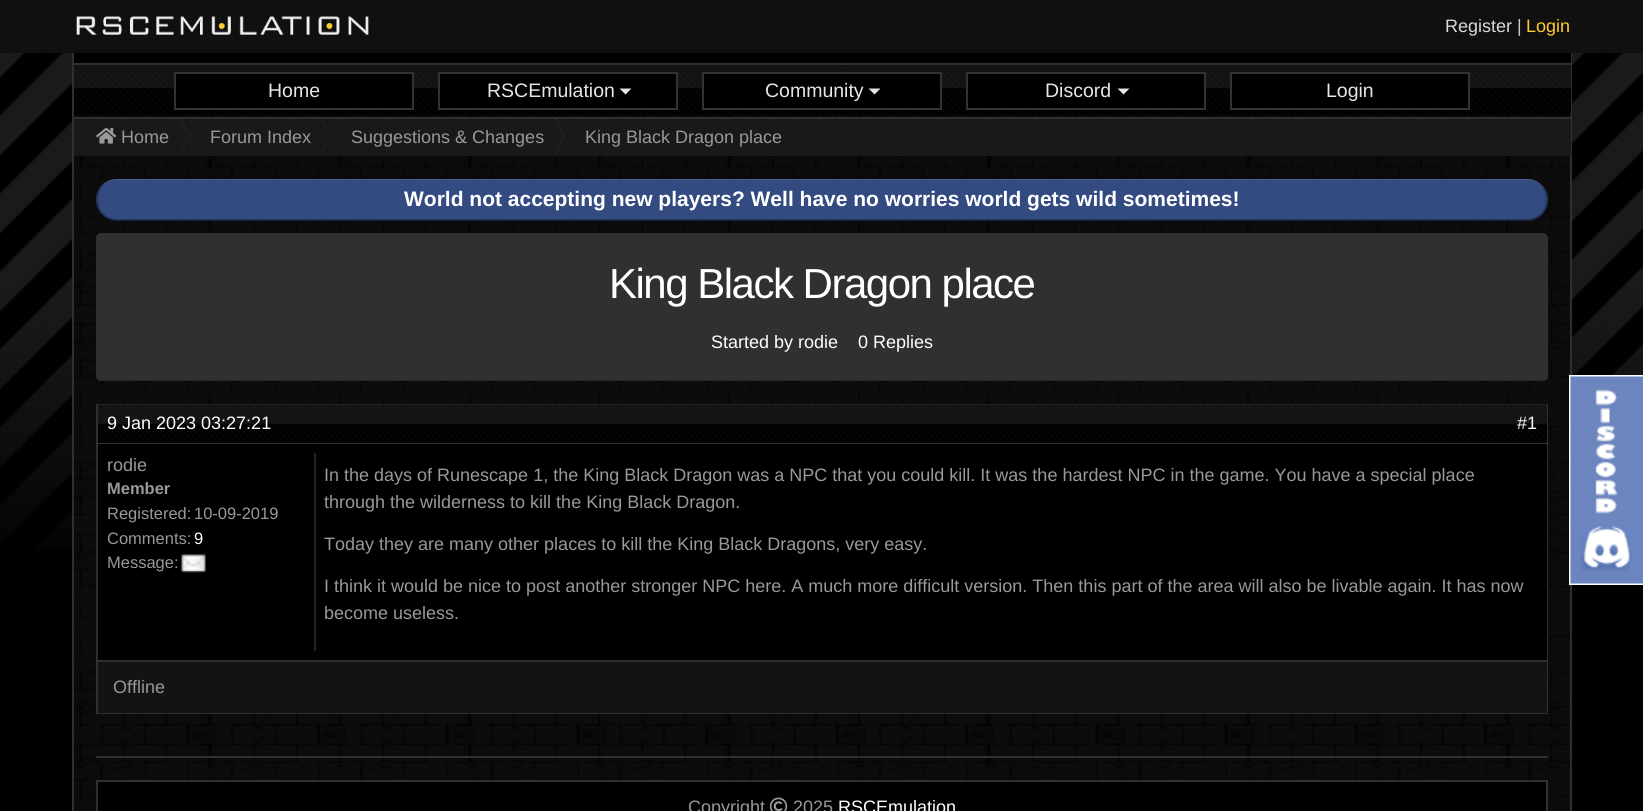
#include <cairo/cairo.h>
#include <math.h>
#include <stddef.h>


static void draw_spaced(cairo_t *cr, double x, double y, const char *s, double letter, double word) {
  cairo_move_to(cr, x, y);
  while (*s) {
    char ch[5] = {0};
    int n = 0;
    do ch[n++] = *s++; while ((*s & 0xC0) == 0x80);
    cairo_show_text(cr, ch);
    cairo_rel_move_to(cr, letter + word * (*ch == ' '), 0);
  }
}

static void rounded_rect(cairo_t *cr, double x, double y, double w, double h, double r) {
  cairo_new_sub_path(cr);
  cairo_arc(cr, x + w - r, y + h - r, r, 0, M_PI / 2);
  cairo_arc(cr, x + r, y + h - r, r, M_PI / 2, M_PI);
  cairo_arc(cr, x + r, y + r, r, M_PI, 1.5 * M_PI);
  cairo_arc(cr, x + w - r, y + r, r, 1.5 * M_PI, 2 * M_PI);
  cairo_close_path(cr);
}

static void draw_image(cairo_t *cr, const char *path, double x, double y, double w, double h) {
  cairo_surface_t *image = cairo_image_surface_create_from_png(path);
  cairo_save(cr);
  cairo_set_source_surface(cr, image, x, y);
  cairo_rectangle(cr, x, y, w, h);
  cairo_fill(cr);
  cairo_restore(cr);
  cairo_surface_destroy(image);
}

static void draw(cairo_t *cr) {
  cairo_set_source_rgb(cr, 0, 0, 0);
  cairo_paint(cr);
  draw_image(cr, "images/1.png", 0, 53, 1643, 496);
  draw_image(cr, "images/3.png", 74, 114, 1496, 697);
  cairo_rectangle(cr, 73, -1, 1498, 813);
  cairo_set_source_rgb(cr, 48 / 255.0, 48 / 255.0, 48 / 255.0);
  cairo_stroke(cr);
  cairo_set_source_rgb(cr, 16 / 255.0, 16 / 255.0, 16 / 255.0);
  cairo_rectangle(cr, 0, 0, 1643, 53);
  cairo_fill(cr);
  draw_image(cr, "images/2.png", 76, 16, 293, 19);
  cairo_set_source_rgb(cr, 0, 0, 0);
  cairo_rectangle(cr, 74, 53, 1497, 10);
  cairo_fill(cr);
  draw_image(cr, "images/4.png", 74, 65, 1497, 51);
  cairo_set_source_rgb(cr, 48 / 255.0, 48 / 255.0, 48 / 255.0);
  cairo_rectangle(cr, 74, 63, 1497, 2);
  cairo_fill(cr);
  cairo_set_source_rgb(cr, 0, 0, 0);
  cairo_rectangle(cr, 175, 73, 238, 36);
  cairo_fill_preserve(cr);
  cairo_set_source_rgb(cr, 51 / 255.0, 51 / 255.0, 51 / 255.0);
  cairo_stroke(cr);
  cairo_set_source_rgb(cr, 0, 0, 0);
  cairo_rectangle(cr, 439, 73, 238, 36);
  cairo_fill_preserve(cr);
  cairo_set_source_rgb(cr, 51 / 255.0, 51 / 255.0, 51 / 255.0);
  cairo_stroke(cr);
  cairo_set_source_rgb(cr, 230 / 255.0, 230 / 255.0, 230 / 255.0);
  cairo_new_path(cr);
  cairo_move_to(cr, 619.5, 88.5);
  cairo_line_to(cr, 631.5, 88.5);
  cairo_line_to(cr, 625.5, 94.5);
  cairo_close_path(cr);
  cairo_fill(cr);
  cairo_set_source_rgb(cr, 0, 0, 0);
  cairo_rectangle(cr, 703, 73, 238, 36);
  cairo_fill_preserve(cr);
  cairo_set_source_rgb(cr, 51 / 255.0, 51 / 255.0, 51 / 255.0);
  cairo_stroke(cr);
  cairo_set_source_rgb(cr, 230 / 255.0, 230 / 255.0, 230 / 255.0);
  cairo_new_path(cr);
  cairo_move_to(cr, 868.5, 88.5);
  cairo_line_to(cr, 880.5, 88.5);
  cairo_line_to(cr, 874.5, 94.5);
  cairo_close_path(cr);
  cairo_fill(cr);
  cairo_set_source_rgb(cr, 0, 0, 0);
  cairo_rectangle(cr, 967, 73, 238, 36);
  cairo_fill_preserve(cr);
  cairo_set_source_rgb(cr, 51 / 255.0, 51 / 255.0, 51 / 255.0);
  cairo_stroke(cr);
  cairo_set_source_rgb(cr, 230 / 255.0, 230 / 255.0, 230 / 255.0);
  cairo_new_path(cr);
  cairo_move_to(cr, 1117.5, 88.5);
  cairo_line_to(cr, 1129.5, 88.5);
  cairo_line_to(cr, 1123.5, 94.5);
  cairo_close_path(cr);
  cairo_fill(cr);
  cairo_set_source_rgb(cr, 0, 0, 0);
  cairo_rectangle(cr, 1231, 73, 238, 36);
  cairo_fill_preserve(cr);
  cairo_set_source_rgb(cr, 51 / 255.0, 51 / 255.0, 51 / 255.0);
  cairo_stroke(cr);
  cairo_set_source_rgb(cr, 25 / 255.0, 25 / 255.0, 25 / 255.0);
  cairo_rectangle(cr, 74, 119, 1497, 37);
  cairo_fill(cr);
  cairo_set_source_rgb(cr, 48 / 255.0, 48 / 255.0, 48 / 255.0);
  cairo_rectangle(cr, 74, 117, 1497, 2);
  cairo_fill(cr);
  draw_image(cr, "images/5.png", 96, 127, 21, 17);
  draw_image(cr, "images/6.png", 180, 118, 10, 36);
  draw_image(cr, "images/6.png", 321, 118, 10, 36);
  draw_image(cr, "images/6.png", 555, 118, 10, 36);
  cairo_set_source_rgb(cr, 51 / 255.0, 75 / 255.0, 128 / 255.0);
  rounded_rect(cr, 96, 179, 1452, 42, 21);
  cairo_fill(cr);
  cairo_set_source_rgba(cr, 0, 0, 0, 0.25);
  cairo_new_path(cr);
  cairo_move_to(cr, 105, 217);
  cairo_curve_to(cr, 109, 220, 113, 221, 117, 221);
  cairo_line_to(cr, 1527, 221);
  cairo_curve_to(cr, 1539, 221, 1548, 212, 1548, 200);
  cairo_curve_to(cr, 1548, 192, 1543, 185, 1536, 181);
  cairo_curve_to(cr, 1553, 192, 1547, 220, 1526, 220);
  cairo_line_to(cr, 116, 220);
  cairo_curve_to(cr, 112, 220, 109, 219, 105, 217);
  cairo_close_path(cr);
  cairo_fill(cr);
  cairo_new_path(cr);
  cairo_move_to(cr, 108, 181);
  cairo_curve_to(cr, 101, 185, 96, 192, 96, 200);
  cairo_curve_to(cr, 96, 212, 105, 221, 117, 221);
  cairo_line_to(cr, 1527, 221);
  cairo_curve_to(cr, 1531, 221, 1535, 220, 1539, 217);
  cairo_curve_to(cr, 1535, 219, 1532, 220, 1528, 220);
  cairo_line_to(cr, 118, 220);
  cairo_curve_to(cr, 97, 220, 91, 192, 108, 181);
  cairo_close_path(cr);
  cairo_fill(cr);
  cairo_new_path(cr);
  cairo_move_to(cr, 96, 199);
  cairo_curve_to(cr, 95, 211, 105, 221, 117, 221);
  cairo_line_to(cr, 1527, 221);
  cairo_curve_to(cr, 1539, 221, 1549, 211, 1548, 199);
  cairo_curve_to(cr, 1547, 211, 1539, 219, 1527, 219);
  cairo_line_to(cr, 117, 219);
  cairo_curve_to(cr, 105, 219, 97, 211, 96, 199);
  cairo_close_path(cr);
  cairo_fill(cr);
  cairo_set_source_rgba(cr, 1, 1, 1, 0.1);
  cairo_new_path(cr);
  cairo_move_to(cr, 117, 180);
  cairo_line_to(cr, 1527, 180);
  cairo_curve_to(cr, 1539, 180, 1548, 189, 1548, 200);
  cairo_curve_to(cr, 1548, 189, 1539, 179, 1527, 179);
  cairo_line_to(cr, 117, 179);
  cairo_curve_to(cr, 105, 179, 96, 189, 96, 200);
  cairo_curve_to(cr, 96, 189, 105, 180, 117, 180);
  cairo_close_path(cr);
  cairo_fill(cr);
  cairo_set_source_rgb(cr, 48 / 255.0, 48 / 255.0, 48 / 255.0);
  rounded_rect(cr, 96, 233, 1452, 148, 5);
  cairo_fill(cr);
  cairo_set_source_rgba(cr, 0, 0, 0, 0.15);
  cairo_rectangle(cr, 99, 380, 1448, 1);
  cairo_fill(cr);
  cairo_set_source_rgb(cr, 0, 0, 0);
  cairo_rectangle(cr, 98, 442, 1448, 1);
  cairo_fill(cr);
  cairo_rectangle(cr, 97, 405, 1450, 308);
  cairo_set_source_rgb(cr, 48 / 255.0, 48 / 255.0, 48 / 255.0);
  cairo_stroke(cr);
  draw_image(cr, "images/7.png", 98, 404, 1449, 38);
  cairo_rectangle(cr, 98, 443, 1449, 1);
  cairo_fill(cr);
  cairo_set_source_rgb(cr, 0, 0, 0);
  cairo_rectangle(cr, 98, 444, 1449, 216);
  cairo_fill(cr);
  draw_image(cr, "images/8.png", 181, 554, 25, 19);
  cairo_set_source_rgb(cr, 37 / 255.0, 37 / 255.0, 37 / 255.0);
  cairo_rectangle(cr, 314, 453, 2, 198);
  cairo_fill(cr);
  cairo_set_source_rgb(cr, 19 / 255.0, 19 / 255.0, 19 / 255.0);
  cairo_rectangle(cr, 98, 662, 1449, 51);
  cairo_fill(cr);
  cairo_set_source_rgb(cr, 48 / 255.0, 48 / 255.0, 48 / 255.0);
  cairo_rectangle(cr, 98, 660, 1449, 2);
  cairo_fill(cr);
  draw_image(cr, "images/9.png", 1569, 375, 74, 210);
  cairo_rectangle(cr, 96, 756, 1452, 2);
  cairo_fill(cr);
  cairo_set_source_rgb(cr, 0, 0, 0);
  cairo_rectangle(cr, 97, 781, 1450, 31);
  cairo_fill_preserve(cr);
  cairo_set_source_rgb(cr, 48 / 255.0, 48 / 255.0, 48 / 255.0);
  cairo_stroke(cr);
  draw_image(cr, "images/10.png", 769, 797, 19, 14);
  cairo_select_font_face(cr, "Liberation Sans", CAIRO_FONT_SLANT_NORMAL, CAIRO_FONT_WEIGHT_NORMAL);
  cairo_set_font_size(cr, 18);
  cairo_set_source_rgb(cr, 218 / 255.0, 218 / 255.0, 218 / 255.0);
  cairo_move_to(cr, 1445, 32);
  cairo_show_text(cr, "Register");
  cairo_set_source_rgb(cr, 204 / 255.0, 204 / 255.0, 204 / 255.0);
  cairo_move_to(cr, 1517, 32);
  cairo_show_text(cr, "|");
  cairo_set_source_rgb(cr, 1, 204 / 255.0, 51 / 255.0);
  cairo_move_to(cr, 1526, 32);
  cairo_show_text(cr, "Login");
  cairo_set_font_size(cr, 19.5);
  cairo_set_source_rgb(cr, 230 / 255.0, 230 / 255.0, 230 / 255.0);
  cairo_move_to(cr, 268, 97);
  cairo_show_text(cr, "Home");
  cairo_move_to(cr, 487, 97);
  cairo_show_text(cr, "RSCEmulation");
  cairo_move_to(cr, 765, 97);
  cairo_show_text(cr, "Community");
  cairo_move_to(cr, 1045, 97);
  cairo_show_text(cr, "Discord");
  cairo_move_to(cr, 1326, 97);
  cairo_show_text(cr, "Login");
  cairo_set_font_size(cr, 18);
  cairo_set_source_rgb(cr, 153 / 255.0, 153 / 255.0, 153 / 255.0);
  cairo_move_to(cr, 121, 143);
  cairo_show_text(cr, "Home");
  cairo_move_to(cr, 210, 143);
  cairo_show_text(cr, "Forum Index");
  cairo_move_to(cr, 351, 143);
  cairo_show_text(cr, "Suggestions & Changes");
  cairo_move_to(cr, 585, 143);
  cairo_show_text(cr, "King Black Dragon place");
  cairo_select_font_face(cr, "Liberation Sans", CAIRO_FONT_SLANT_NORMAL, CAIRO_FONT_WEIGHT_BOLD);
  cairo_set_font_size(cr, 21);
  cairo_set_source_rgb(cr, 1, 1, 1);
  cairo_move_to(cr, 404, 206);
  cairo_show_text(cr, "World not accepting new players? Well have no worries world gets wild sometimes!");
  cairo_select_font_face(cr, "Liberation Sans", CAIRO_FONT_SLANT_NORMAL, CAIRO_FONT_WEIGHT_NORMAL);
  cairo_set_font_size(cr, 42);
  draw_spaced(cr, 609, 298, "King Black Dragon place", -1.5, 0);
  cairo_set_font_size(cr, 18);
  cairo_move_to(cr, 711, 348);
  cairo_show_text(cr, "Started by rodie");
  cairo_move_to(cr, 858, 348);
  cairo_show_text(cr, "0 Replies");
  cairo_move_to(cr, 107, 429);
  cairo_show_text(cr, "9 Jan 2023 03:27:21");
  cairo_set_source_rgb(cr, 248 / 255.0, 248 / 255.0, 1);
  cairo_move_to(cr, 1517, 429);
  cairo_show_text(cr, "#1");
  cairo_set_source_rgb(cr, 153 / 255.0, 153 / 255.0, 153 / 255.0);
  cairo_move_to(cr, 107, 471);
  cairo_show_text(cr, "rodie");
  cairo_select_font_face(cr, "Liberation Sans", CAIRO_FONT_SLANT_NORMAL, CAIRO_FONT_WEIGHT_BOLD);
  cairo_set_font_size(cr, 16.5);
  cairo_move_to(cr, 107, 494);
  cairo_show_text(cr, "Member");
  cairo_select_font_face(cr, "Liberation Sans", CAIRO_FONT_SLANT_NORMAL, CAIRO_FONT_WEIGHT_NORMAL);
  cairo_move_to(cr, 107, 519);
  cairo_show_text(cr, "Registered:");
  cairo_move_to(cr, 194, 519);
  cairo_show_text(cr, "10-09-2019");
  cairo_move_to(cr, 107, 544);
  cairo_show_text(cr, "Comments:");
  cairo_set_source_rgb(cr, 1, 1, 1);
  cairo_move_to(cr, 194, 544);
  cairo_show_text(cr, "9");
  cairo_set_source_rgb(cr, 153 / 255.0, 153 / 255.0, 153 / 255.0);
  cairo_move_to(cr, 107, 568);
  cairo_show_text(cr, "Message:");
  cairo_set_font_size(cr, 18);
  cairo_move_to(cr, 324, 481);
  cairo_show_text(cr, "In the days of Runescape 1, the King Black Dragon was a NPC that you could kill. It was the hardest NPC in the game. You have a special place");
  cairo_move_to(cr, 324, 508);
  cairo_show_text(cr, "through the wilderness to kill the King Black Dragon.");
  cairo_move_to(cr, 324, 550);
  cairo_show_text(cr, "Today they are many other places to kill the King Black Dragons, very easy.");
  cairo_move_to(cr, 324, 592);
  cairo_show_text(cr, "I think it would be nice to post another stronger NPC here. A much more difficult version. Then this part of the area will also be livable again. It has now");
  cairo_move_to(cr, 324, 619);
  cairo_show_text(cr, "become useless.");
  cairo_move_to(cr, 113, 693);
  cairo_show_text(cr, "Offline");
  cairo_move_to(cr, 688, 813);
  cairo_show_text(cr, "Copyright");
  cairo_move_to(cr, 793, 813);
  cairo_show_text(cr, "2025");
  cairo_set_source_rgb(cr, 1, 1, 1);
  cairo_move_to(cr, 838, 813);
  cairo_show_text(cr, "RSCEmulation");
}

int main(void) {
  cairo_surface_t *surface = cairo_image_surface_create(CAIRO_FORMAT_RGB24, 1643, 811);
  cairo_t *cr = cairo_create(surface);
  cairo_font_options_t *options = cairo_font_options_create();
  cairo_font_options_set_hint_metrics(options, CAIRO_HINT_METRICS_OFF);
  cairo_font_options_set_hint_style(options, CAIRO_HINT_STYLE_NONE);
  cairo_set_font_options(cr, options);
  cairo_set_miter_limit(cr, 4);
  draw(cr);
  cairo_surface_write_to_png(surface, "out.png");
  cairo_font_options_destroy(options);
  cairo_destroy(cr);
  cairo_surface_destroy(surface);
  return 0;
}
